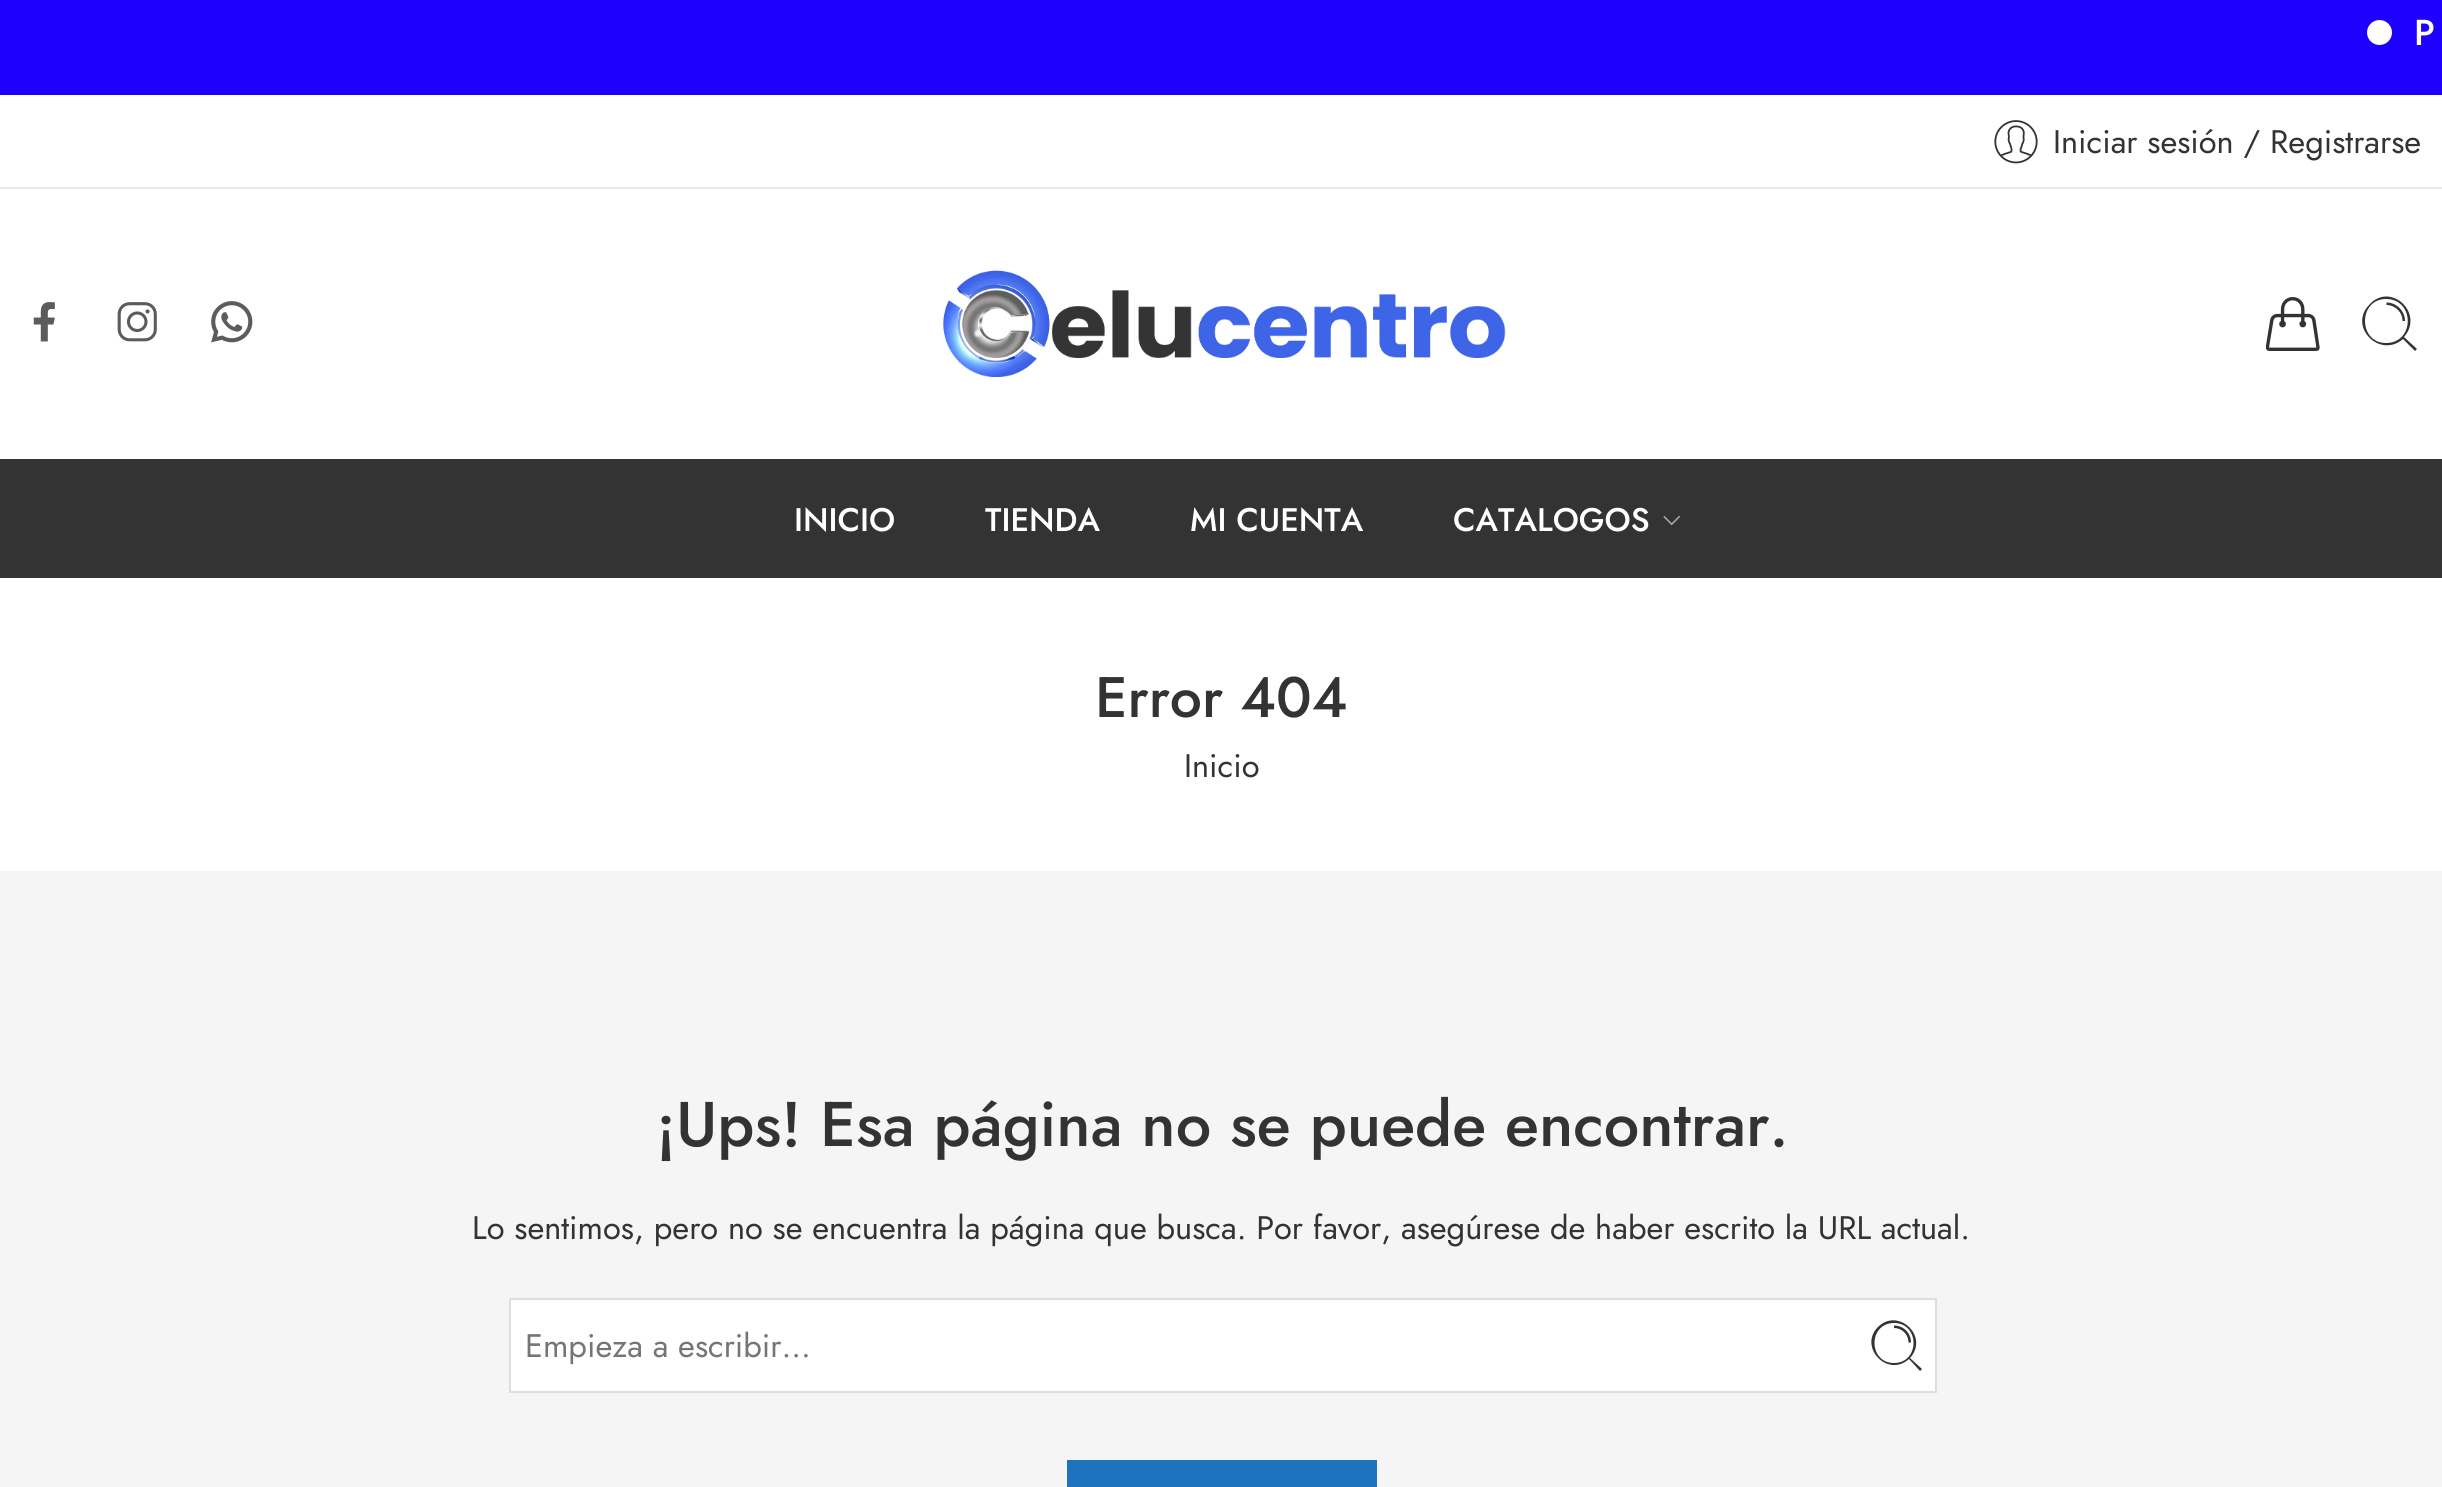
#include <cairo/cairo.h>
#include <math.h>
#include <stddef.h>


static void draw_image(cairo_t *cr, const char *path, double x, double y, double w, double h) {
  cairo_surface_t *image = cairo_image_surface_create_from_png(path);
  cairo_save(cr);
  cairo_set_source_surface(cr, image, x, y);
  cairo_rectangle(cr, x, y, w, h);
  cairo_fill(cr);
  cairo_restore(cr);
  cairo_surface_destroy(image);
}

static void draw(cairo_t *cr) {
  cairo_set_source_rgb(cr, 1, 1, 1);
  cairo_paint(cr);
  cairo_set_source_rgb(cr, 30 / 255.0, 0, 1);
  cairo_rectangle(cr, 0, 0, 2442, 95);
  cairo_fill(cr);
  cairo_set_source_rgb(cr, 1, 1, 1);
  cairo_arc(cr, 2379.5, 32.5, 12.5, 0, 2 * M_PI);
  cairo_fill(cr);
  cairo_set_source_rgb(cr, 236 / 255.0, 236 / 255.0, 236 / 255.0);
  cairo_rectangle(cr, 0, 187, 2442, 2);
  cairo_fill(cr);
  draw_image(cr, "images/1.png", 1994, 120, 44, 44);
  draw_image(cr, "images/2.png", 33, 302, 22, 40);
  draw_image(cr, "images/3.png", 117, 302, 40, 40);
  draw_image(cr, "images/4.png", 211, 301, 42, 42);
  draw_image(cr, "images/5.png", 943, 270, 563, 107);
  draw_image(cr, "images/6.png", 2266, 297, 54, 54);
  cairo_set_source_rgb(cr, 51 / 255.0, 51 / 255.0, 51 / 255.0);
  cairo_new_path(cr);
  cairo_move_to(cr, 2417, 349);
  cairo_line_to(cr, 2404, 337);
  cairo_curve_to(cr, 2425, 313, 2390, 281, 2369, 305);
  cairo_curve_to(cr, 2348, 327, 2380, 359, 2403, 339);
  cairo_line_to(cr, 2415, 351);
  cairo_close_path(cr);
  cairo_move_to(cr, 2386, 343);
  cairo_curve_to(cr, 2358, 343, 2358, 299, 2386, 299);
  cairo_curve_to(cr, 2415, 299, 2415, 343, 2386, 343);
  cairo_close_path(cr);
  cairo_fill(cr);
  cairo_new_path(cr);
  cairo_move_to(cr, 2386.5, 302.5);
  cairo_line_to(cr, 2386.5, 305);
  cairo_curve_to(cr, 2395, 305, 2402.5, 312, 2402.5, 321);
  cairo_line_to(cr, 2405, 321);
  cairo_curve_to(cr, 2405, 311, 2396.5, 302.5, 2386.5, 302.5);
  cairo_close_path(cr);
  cairo_fill(cr);
  cairo_rectangle(cr, 0, 459, 2442, 119);
  cairo_fill(cr);
  draw_image(cr, "images/7.png", 1663, 515, 18, 11);
  cairo_set_source_rgb(cr, 245 / 255.0, 245 / 255.0, 245 / 255.0);
  cairo_rectangle(cr, 0, 871, 2442, 616);
  cairo_fill(cr);
  cairo_set_source_rgb(cr, 1, 1, 1);
  cairo_rectangle(cr, 510, 1299, 1426, 93);
  cairo_fill_preserve(cr);
  cairo_set_source_rgb(cr, 222 / 255.0, 222 / 255.0, 222 / 255.0);
  cairo_stroke(cr);
  cairo_set_source_rgb(cr, 51 / 255.0, 51 / 255.0, 51 / 255.0);
  cairo_new_path(cr);
  cairo_move_to(cr, 1922, 1369);
  cairo_line_to(cr, 1910, 1358);
  cairo_curve_to(cr, 1930, 1336, 1897, 1306, 1877, 1328);
  cairo_curve_to(cr, 1859, 1348, 1888, 1378, 1909, 1359);
  cairo_line_to(cr, 1920, 1371);
  cairo_close_path(cr);
  cairo_move_to(cr, 1894, 1363);
  cairo_curve_to(cr, 1868, 1363, 1868, 1323, 1894, 1323);
  cairo_curve_to(cr, 1920, 1323, 1920, 1363, 1894, 1363);
  cairo_close_path(cr);
  cairo_fill(cr);
  cairo_new_path(cr);
  cairo_move_to(cr, 1894, 1325.5);
  cairo_line_to(cr, 1894, 1328);
  cairo_curve_to(cr, 1902, 1328, 1908.5, 1334.5, 1908.5, 1342.5);
  cairo_line_to(cr, 1911, 1342.5);
  cairo_curve_to(cr, 1911, 1333, 1903.5, 1325.5, 1894, 1325.5);
  cairo_close_path(cr);
  cairo_fill(cr);
  cairo_set_source_rgb(cr, 30 / 255.0, 115 / 255.0, 190 / 255.0);
  cairo_rectangle(cr, 1067, 1460, 310, 27);
  cairo_fill(cr);
  cairo_select_font_face(cr, "Jost Medium", CAIRO_FONT_SLANT_NORMAL, CAIRO_FONT_WEIGHT_NORMAL);
  cairo_set_font_size(cr, 36);
  cairo_set_source_rgb(cr, 1, 1, 1);
  cairo_move_to(cr, 2414, 45);
  cairo_show_text(cr, "P");
  cairo_select_font_face(cr, "Jost", CAIRO_FONT_SLANT_NORMAL, CAIRO_FONT_WEIGHT_NORMAL);
  cairo_set_font_size(cr, 32.6);
  cairo_set_source_rgb(cr, 51 / 255.0, 51 / 255.0, 51 / 255.0);
  cairo_move_to(cr, 2053, 153);
  cairo_show_text(cr, "Iniciar sesión / Registrarse");
  cairo_select_font_face(cr, "Jost Medium", CAIRO_FONT_SLANT_NORMAL, CAIRO_FONT_WEIGHT_NORMAL);
  cairo_set_source_rgb(cr, 1, 1, 1);
  cairo_move_to(cr, 794, 531);
  cairo_show_text(cr, "INICIO");
  cairo_move_to(cr, 985, 531);
  cairo_show_text(cr, "TIENDA");
  cairo_move_to(cr, 1190, 531);
  cairo_show_text(cr, "MI CUENTA");
  cairo_move_to(cr, 1453, 531);
  cairo_show_text(cr, "CATALOGOS");
  cairo_set_font_size(cr, 57);
  cairo_set_source_rgb(cr, 51 / 255.0, 51 / 255.0, 51 / 255.0);
  cairo_move_to(cr, 1095, 717);
  cairo_show_text(cr, "Error 404");
  cairo_select_font_face(cr, "Jost", CAIRO_FONT_SLANT_NORMAL, CAIRO_FONT_WEIGHT_NORMAL);
  cairo_set_font_size(cr, 32.6);
  cairo_move_to(cr, 1184, 777);
  cairo_show_text(cr, "Inicio");
  cairo_select_font_face(cr, "Jost Medium", CAIRO_FONT_SLANT_NORMAL, CAIRO_FONT_WEIGHT_NORMAL);
  cairo_set_font_size(cr, 63);
  cairo_move_to(cr, 656, 1146);
  cairo_show_text(cr, "¡Ups! Esa página no se puede encontrar.");
  cairo_select_font_face(cr, "Jost", CAIRO_FONT_SLANT_NORMAL, CAIRO_FONT_WEIGHT_NORMAL);
  cairo_set_font_size(cr, 32.6);
  cairo_move_to(cr, 472, 1239);
  cairo_show_text(cr, "Lo sentimos, pero no se encuentra la página que busca. Por favor, asegúrese de haber escrito la URL actual.");
  cairo_set_source_rgb(cr, 117 / 255.0, 117 / 255.0, 117 / 255.0);
  cairo_move_to(cr, 525, 1357);
  cairo_show_text(cr, "Empieza a escribir...");
}

int main(void) {
  cairo_surface_t *surface = cairo_image_surface_create(CAIRO_FORMAT_RGB24, 2442, 1487);
  cairo_t *cr = cairo_create(surface);
  cairo_font_options_t *options = cairo_font_options_create();
  cairo_font_options_set_hint_metrics(options, CAIRO_HINT_METRICS_OFF);
  cairo_font_options_set_hint_style(options, CAIRO_HINT_STYLE_NONE);
  cairo_set_font_options(cr, options);
  cairo_set_miter_limit(cr, 4);
  draw(cr);
  cairo_surface_write_to_png(surface, "out.png");
  cairo_font_options_destroy(options);
  cairo_destroy(cr);
  cairo_surface_destroy(surface);
  return 0;
}
